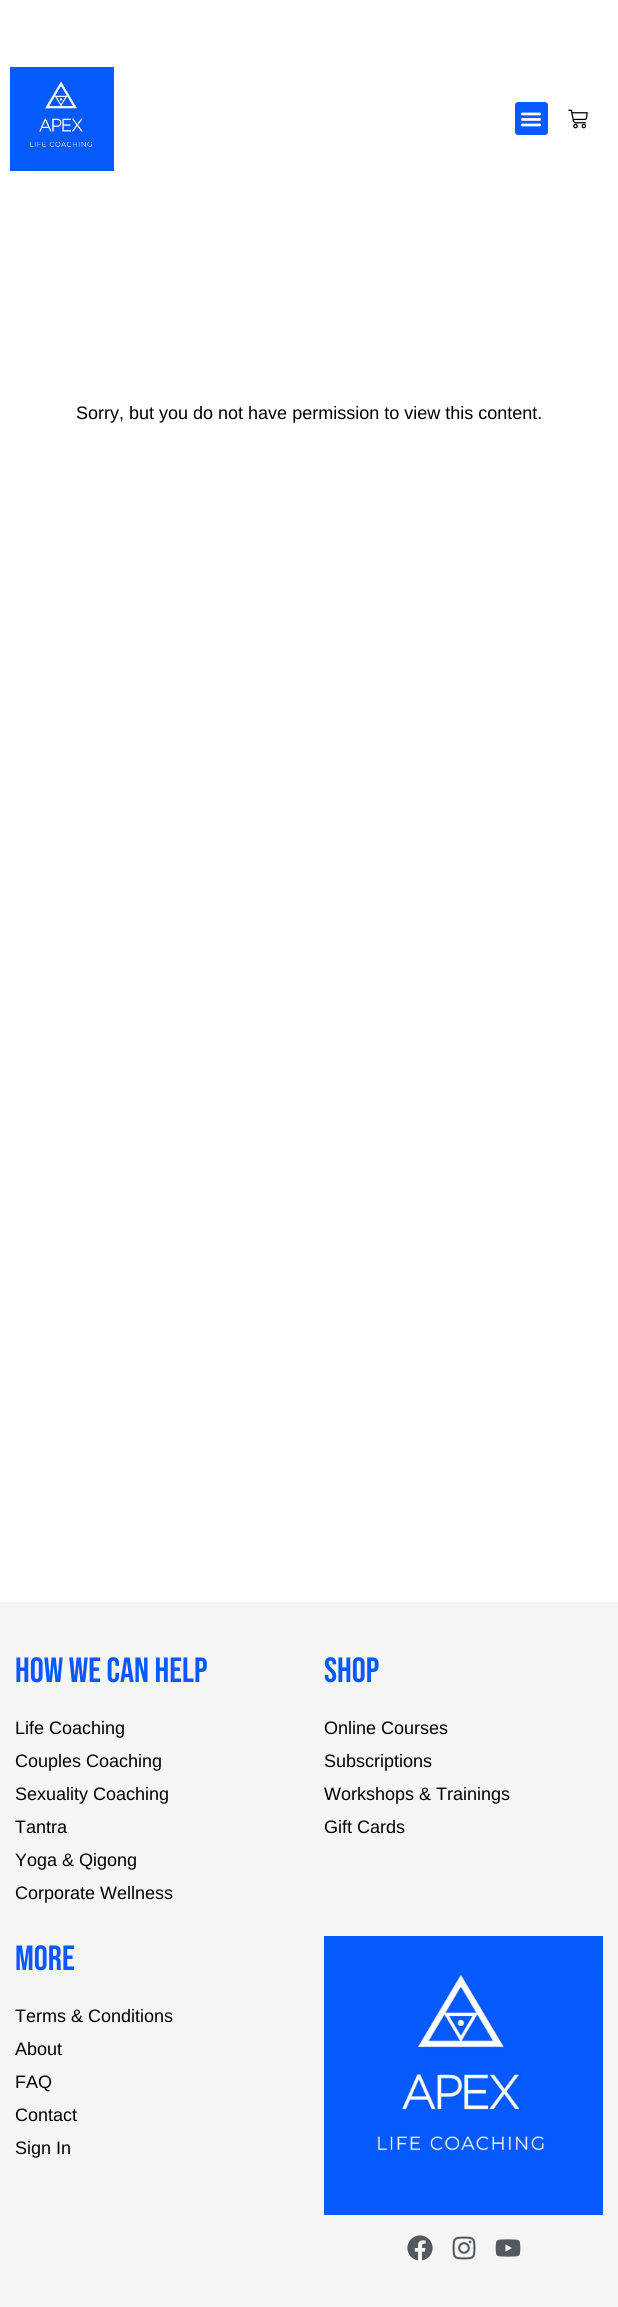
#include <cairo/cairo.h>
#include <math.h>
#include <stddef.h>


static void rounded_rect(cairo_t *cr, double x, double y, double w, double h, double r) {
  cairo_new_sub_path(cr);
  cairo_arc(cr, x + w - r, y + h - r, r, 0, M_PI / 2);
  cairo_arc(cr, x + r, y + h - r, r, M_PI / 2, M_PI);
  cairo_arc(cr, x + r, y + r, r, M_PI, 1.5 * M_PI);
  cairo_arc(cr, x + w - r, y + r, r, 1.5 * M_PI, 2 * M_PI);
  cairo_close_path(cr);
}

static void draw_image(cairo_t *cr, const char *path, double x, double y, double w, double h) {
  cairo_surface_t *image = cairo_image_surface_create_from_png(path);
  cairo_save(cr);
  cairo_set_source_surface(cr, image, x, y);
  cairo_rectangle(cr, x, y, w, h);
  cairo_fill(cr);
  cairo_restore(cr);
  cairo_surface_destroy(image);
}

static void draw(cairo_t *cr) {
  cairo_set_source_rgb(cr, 1, 1, 1);
  cairo_paint(cr);
  draw_image(cr, "images/1.png", 10, 67, 104, 104);
  cairo_set_source_rgb(cr, 8 / 255.0, 89 / 255.0, 1);
  rounded_rect(cr, 515, 102, 33, 33, 3);
  cairo_fill(cr);
  draw_image(cr, "images/2.png", 520, 112, 22, 15);
  draw_image(cr, "images/3.png", 568, 109, 20, 20);
  cairo_set_source_rgb(cr, 245 / 255.0, 245 / 255.0, 245 / 255.0);
  cairo_rectangle(cr, 0, 1602, 618, 705);
  cairo_fill(cr);
  draw_image(cr, "images/4.png", 324, 1936, 279, 279);
  draw_image(cr, "images/5.png", 407, 2235, 26, 26);
  draw_image(cr, "images/6.png", 452, 2236, 24, 24);
  draw_image(cr, "images/7.png", 495, 2239, 26, 18);
  cairo_select_font_face(cr, "Liberation Sans", CAIRO_FONT_SLANT_NORMAL, CAIRO_FONT_WEIGHT_NORMAL);
  cairo_set_font_size(cr, 18);
  cairo_set_source_rgb(cr, 0, 0, 0);
  cairo_move_to(cr, 76, 419);
  cairo_show_text(cr, "Sorry, but you do not have permission to view this content.");
  cairo_select_font_face(cr, "Bebas Neue", CAIRO_FONT_SLANT_NORMAL, CAIRO_FONT_WEIGHT_NORMAL);
  cairo_set_font_size(cr, 35);
  cairo_set_source_rgb(cr, 8 / 255.0, 89 / 255.0, 1);
  cairo_move_to(cr, 15, 1682);
  cairo_show_text(cr, "How We Can Help");
  cairo_select_font_face(cr, "Liberation Sans", CAIRO_FONT_SLANT_NORMAL, CAIRO_FONT_WEIGHT_NORMAL);
  cairo_set_font_size(cr, 18);
  cairo_set_source_rgb(cr, 0, 0, 0);
  cairo_move_to(cr, 15, 1734);
  cairo_show_text(cr, "Life Coaching");
  cairo_move_to(cr, 15, 1767);
  cairo_show_text(cr, "Couples Coaching");
  cairo_move_to(cr, 15, 1800);
  cairo_show_text(cr, "Sexuality Coaching");
  cairo_move_to(cr, 15, 1833);
  cairo_show_text(cr, "Tantra");
  cairo_move_to(cr, 15, 1866);
  cairo_show_text(cr, "Yoga & Qigong");
  cairo_move_to(cr, 15, 1899);
  cairo_show_text(cr, "Corporate Wellness");
  cairo_select_font_face(cr, "Bebas Neue", CAIRO_FONT_SLANT_NORMAL, CAIRO_FONT_WEIGHT_NORMAL);
  cairo_set_font_size(cr, 35);
  cairo_set_source_rgb(cr, 8 / 255.0, 89 / 255.0, 1);
  cairo_move_to(cr, 324, 1682);
  cairo_show_text(cr, "Shop");
  cairo_select_font_face(cr, "Liberation Sans", CAIRO_FONT_SLANT_NORMAL, CAIRO_FONT_WEIGHT_NORMAL);
  cairo_set_font_size(cr, 18);
  cairo_set_source_rgb(cr, 0, 0, 0);
  cairo_move_to(cr, 324, 1734);
  cairo_show_text(cr, "Online Courses");
  cairo_move_to(cr, 324, 1767);
  cairo_show_text(cr, "Subscriptions");
  cairo_move_to(cr, 324, 1800);
  cairo_show_text(cr, "Workshops & Trainings");
  cairo_move_to(cr, 324, 1833);
  cairo_show_text(cr, "Gift Cards");
  cairo_select_font_face(cr, "Bebas Neue", CAIRO_FONT_SLANT_NORMAL, CAIRO_FONT_WEIGHT_NORMAL);
  cairo_set_font_size(cr, 35);
  cairo_set_source_rgb(cr, 8 / 255.0, 89 / 255.0, 1);
  cairo_move_to(cr, 15, 1970);
  cairo_show_text(cr, "More");
  cairo_select_font_face(cr, "Liberation Sans", CAIRO_FONT_SLANT_NORMAL, CAIRO_FONT_WEIGHT_NORMAL);
  cairo_set_font_size(cr, 18);
  cairo_set_source_rgb(cr, 0, 0, 0);
  cairo_move_to(cr, 15, 2022);
  cairo_show_text(cr, "Terms & Conditions");
  cairo_move_to(cr, 15, 2055);
  cairo_show_text(cr, "About");
  cairo_move_to(cr, 15, 2088);
  cairo_show_text(cr, "FAQ");
  cairo_move_to(cr, 15, 2121);
  cairo_show_text(cr, "Contact");
  cairo_move_to(cr, 15, 2154);
  cairo_show_text(cr, "Sign In");
}

int main(void) {
  cairo_surface_t *surface = cairo_image_surface_create(CAIRO_FORMAT_RGB24, 618, 2307);
  cairo_t *cr = cairo_create(surface);
  cairo_font_options_t *options = cairo_font_options_create();
  cairo_font_options_set_hint_metrics(options, CAIRO_HINT_METRICS_OFF);
  cairo_font_options_set_hint_style(options, CAIRO_HINT_STYLE_NONE);
  cairo_set_font_options(cr, options);
  cairo_set_miter_limit(cr, 4);
  draw(cr);
  cairo_surface_write_to_png(surface, "out.png");
  cairo_font_options_destroy(options);
  cairo_destroy(cr);
  cairo_surface_destroy(surface);
  return 0;
}
